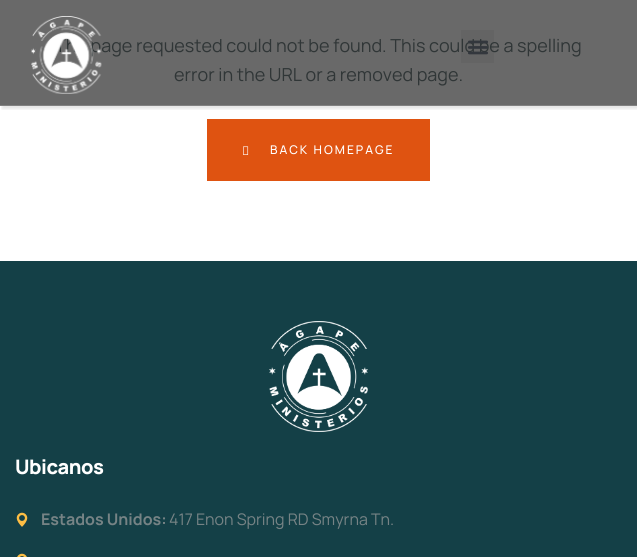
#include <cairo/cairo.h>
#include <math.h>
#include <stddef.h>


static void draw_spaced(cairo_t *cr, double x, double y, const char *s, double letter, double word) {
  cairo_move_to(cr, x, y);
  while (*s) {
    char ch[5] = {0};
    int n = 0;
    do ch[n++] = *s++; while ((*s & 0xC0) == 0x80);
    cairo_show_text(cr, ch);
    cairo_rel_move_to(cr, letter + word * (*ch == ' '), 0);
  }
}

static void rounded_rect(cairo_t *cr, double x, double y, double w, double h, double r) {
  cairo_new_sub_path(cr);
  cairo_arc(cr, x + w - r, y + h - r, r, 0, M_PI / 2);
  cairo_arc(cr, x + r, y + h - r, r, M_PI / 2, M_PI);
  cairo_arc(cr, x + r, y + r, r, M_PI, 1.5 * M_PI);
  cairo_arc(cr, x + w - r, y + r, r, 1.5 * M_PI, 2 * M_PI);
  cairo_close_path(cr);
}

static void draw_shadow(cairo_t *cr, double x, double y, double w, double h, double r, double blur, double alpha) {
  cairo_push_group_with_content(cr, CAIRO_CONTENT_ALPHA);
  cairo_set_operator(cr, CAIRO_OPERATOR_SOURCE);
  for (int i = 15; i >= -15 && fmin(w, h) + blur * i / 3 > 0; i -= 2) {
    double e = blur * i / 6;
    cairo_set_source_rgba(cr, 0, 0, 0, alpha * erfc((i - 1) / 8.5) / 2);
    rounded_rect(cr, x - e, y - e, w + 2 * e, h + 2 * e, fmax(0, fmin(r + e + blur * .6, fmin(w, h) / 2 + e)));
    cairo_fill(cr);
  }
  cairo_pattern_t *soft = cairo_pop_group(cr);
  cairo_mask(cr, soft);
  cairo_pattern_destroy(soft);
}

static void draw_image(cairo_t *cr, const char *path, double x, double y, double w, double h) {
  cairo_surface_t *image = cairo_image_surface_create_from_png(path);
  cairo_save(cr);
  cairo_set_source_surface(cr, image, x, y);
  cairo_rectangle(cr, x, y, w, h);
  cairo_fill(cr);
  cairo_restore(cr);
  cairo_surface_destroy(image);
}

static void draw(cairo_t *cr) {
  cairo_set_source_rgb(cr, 1, 1, 1);
  cairo_paint(cr);
  cairo_set_source_rgb(cr, 105 / 255.0, 105 / 255.0, 105 / 255.0);
  cairo_rectangle(cr, 0, 0, 637, 105);
  cairo_fill(cr);
  cairo_save(cr);
  cairo_rectangle(cr, 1, 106, 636, 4);
  cairo_clip(cr);
  cairo_set_source_rgb(cr, 0, 0, 0);
  draw_shadow(cr, 2, 3, 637, 106, 0, 1.5, 0.1);
  cairo_restore(cr);
  cairo_set_source_rgb(cr, 129 / 255.0, 129 / 255.0, 129 / 255.0);
  cairo_rectangle(cr, 0, 105, 637, 1);
  cairo_fill(cr);
  cairo_set_source_rgba(cr, 0, 0, 0, 0.05);
  cairo_rectangle(cr, 461, 30, 33, 33);
  cairo_fill(cr);
  cairo_set_source_rgb(cr, 223 / 255.0, 83 / 255.0, 17 / 255.0);
  cairo_rectangle(cr, 207, 119, 223, 62);
  cairo_fill(cr);
  draw_image(cr, "images/3.png", 243, 146, 6, 9);
  cairo_set_source_rgb(cr, 20 / 255.0, 64 / 255.0, 71 / 255.0);
  cairo_rectangle(cr, 0, 261, 637, 296);
  cairo_fill(cr);
  draw_image(cr, "images/4.png", 269, 321, 99, 111);
  draw_image(cr, "images/5.png", 16, 512, 12, 15);
  draw_image(cr, "images/6.png", 17, 553, 10, 4);
  cairo_select_font_face(cr, "Manrope", CAIRO_FONT_SLANT_NORMAL, CAIRO_FONT_WEIGHT_NORMAL);
  cairo_set_font_size(cr, 18);
  cairo_set_source_rgb(cr, 48 / 255.0, 54 / 255.0, 55 / 255.0);
  cairo_move_to(cr, 55, 52);
  cairo_show_text(cr, "The page requested could not be found. This could be a spelling");
  draw_image(cr, "images/2.png", 468, 40, 20, 15);
  draw_image(cr, "images/1.png", 31, 16, 71, 78);
  cairo_move_to(cr, 174, 81);
  cairo_show_text(cr, "error in the URL or a removed page.");
  cairo_select_font_face(cr, "Manrope Medium", CAIRO_FONT_SLANT_NORMAL, CAIRO_FONT_WEIGHT_NORMAL);
  cairo_set_font_size(cr, 12);
  cairo_set_source_rgb(cr, 1, 1, 1);
  draw_spaced(cr, 270, 154, "BACK HOMEPAGE", 2, 0);
  cairo_select_font_face(cr, "Manrope ExtraBold", CAIRO_FONT_SLANT_NORMAL, CAIRO_FONT_WEIGHT_NORMAL);
  cairo_set_font_size(cr, 20);
  draw_spaced(cr, 15, 474, "Ubicanos", -0.5, 0);
  cairo_select_font_face(cr, "Manrope", CAIRO_FONT_SLANT_NORMAL, CAIRO_FONT_WEIGHT_BOLD);
  cairo_set_font_size(cr, 16);
  cairo_set_source_rgb(cr, 118 / 255.0, 131 / 255.0, 133 / 255.0);
  cairo_move_to(cr, 41, 525);
  cairo_show_text(cr, "Estados Unidos:");
  cairo_select_font_face(cr, "Manrope", CAIRO_FONT_SLANT_NORMAL, CAIRO_FONT_WEIGHT_NORMAL);
  cairo_move_to(cr, 169, 525);
  cairo_show_text(cr, "417 Enon Spring RD Smyrna Tn.");
}

int main(void) {
  cairo_surface_t *surface = cairo_image_surface_create(CAIRO_FORMAT_RGB24, 637, 557);
  cairo_t *cr = cairo_create(surface);
  cairo_font_options_t *options = cairo_font_options_create();
  cairo_font_options_set_hint_metrics(options, CAIRO_HINT_METRICS_OFF);
  cairo_font_options_set_hint_style(options, CAIRO_HINT_STYLE_NONE);
  cairo_set_font_options(cr, options);
  cairo_set_miter_limit(cr, 4);
  draw(cr);
  cairo_surface_write_to_png(surface, "out.png");
  cairo_font_options_destroy(options);
  cairo_destroy(cr);
  cairo_surface_destroy(surface);
  return 0;
}
